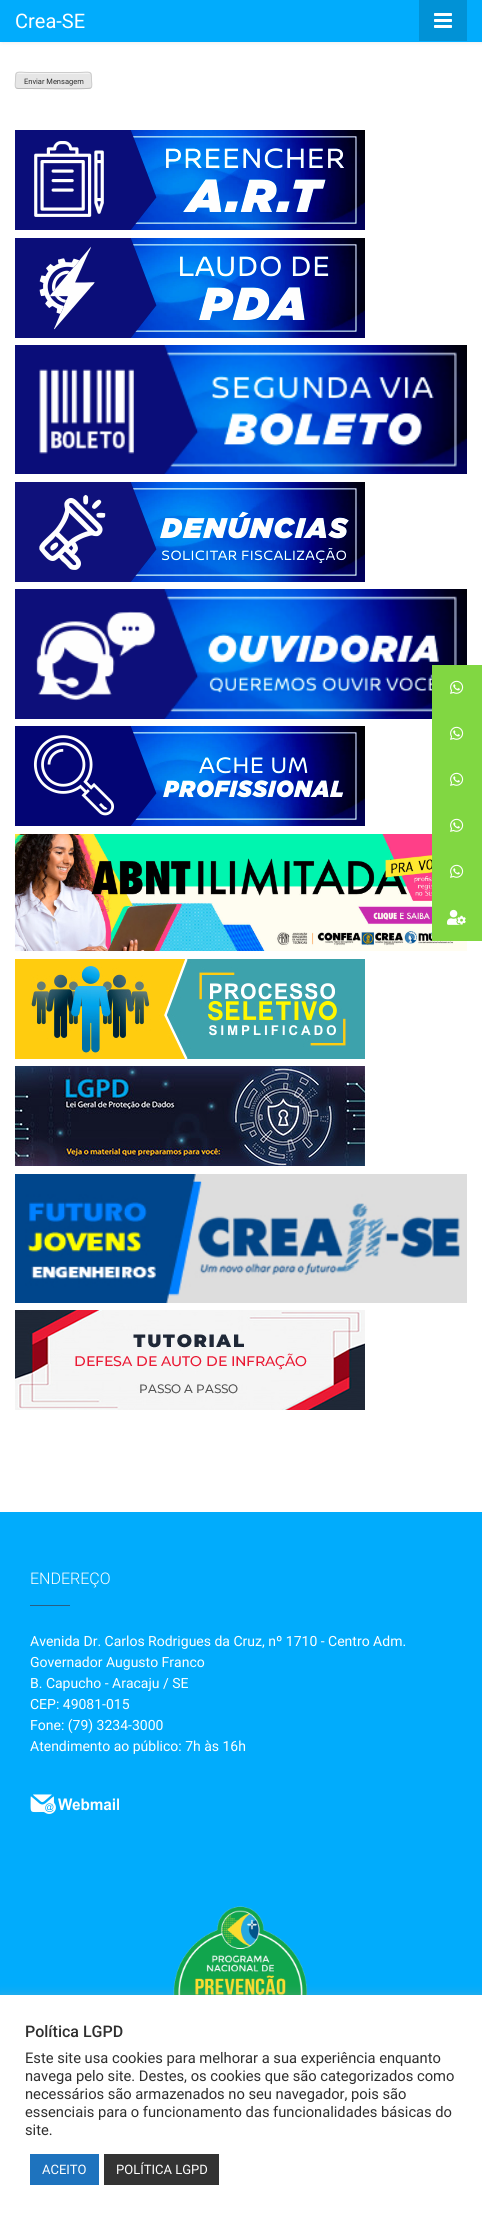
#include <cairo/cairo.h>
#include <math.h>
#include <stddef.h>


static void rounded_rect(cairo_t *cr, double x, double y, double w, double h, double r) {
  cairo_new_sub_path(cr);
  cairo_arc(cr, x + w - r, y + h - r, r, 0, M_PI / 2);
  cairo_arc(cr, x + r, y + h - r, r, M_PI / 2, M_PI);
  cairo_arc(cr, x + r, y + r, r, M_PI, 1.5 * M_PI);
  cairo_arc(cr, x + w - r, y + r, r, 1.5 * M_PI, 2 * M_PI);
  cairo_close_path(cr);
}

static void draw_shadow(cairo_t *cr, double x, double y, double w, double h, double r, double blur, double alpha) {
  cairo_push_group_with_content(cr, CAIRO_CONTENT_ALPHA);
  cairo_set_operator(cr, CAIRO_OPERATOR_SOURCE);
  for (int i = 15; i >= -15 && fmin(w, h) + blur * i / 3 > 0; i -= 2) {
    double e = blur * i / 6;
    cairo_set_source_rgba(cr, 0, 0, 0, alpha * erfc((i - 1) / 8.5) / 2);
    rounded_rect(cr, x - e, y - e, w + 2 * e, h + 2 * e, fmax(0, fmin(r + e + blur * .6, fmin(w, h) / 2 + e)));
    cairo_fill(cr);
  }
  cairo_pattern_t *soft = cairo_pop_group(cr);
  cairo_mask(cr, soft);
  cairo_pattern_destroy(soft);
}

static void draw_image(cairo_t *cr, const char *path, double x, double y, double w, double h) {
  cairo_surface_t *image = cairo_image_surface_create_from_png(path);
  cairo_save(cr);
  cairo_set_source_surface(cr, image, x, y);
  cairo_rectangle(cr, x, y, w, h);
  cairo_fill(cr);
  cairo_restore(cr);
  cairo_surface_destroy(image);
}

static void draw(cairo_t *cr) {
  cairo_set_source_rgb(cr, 1, 1, 1);
  cairo_paint(cr);
  cairo_set_source_rgb(cr, 0, 0, 0);
  draw_shadow(cr, 2, 0, 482, 42, 0, 2.5, 0.1);
  cairo_set_source_rgb(cr, 1 / 255.0, 172 / 255.0, 252 / 255.0);
  cairo_rectangle(cr, 0, 0, 482, 42);
  cairo_fill(cr);
  cairo_set_source_rgb(cr, 1 / 255.0, 146 / 255.0, 214 / 255.0);
  cairo_rectangle(cr, 419, 0, 48, 41);
  cairo_fill(cr);
  draw_image(cr, "images/1.png", 434, 13, 18, 15);
  cairo_set_source_rgb(cr, 230 / 255.0, 230 / 255.0, 230 / 255.0);
  rounded_rect(cr, 15, 72, 77, 17, 3);
  cairo_fill(cr);
  cairo_set_source_rgb(cr, 243 / 255.0, 243 / 255.0, 243 / 255.0);
  cairo_new_path(cr);
  cairo_move_to(cr, 18, 74);
  cairo_line_to(cr, 89, 74);
  cairo_curve_to(cr, 90, 74, 91, 75, 91, 76);
  cairo_curve_to(cr, 91, 70, 80, 73, 77, 73);
  cairo_line_to(cr, 30, 73);
  cairo_curve_to(cr, 27, 73, 16, 70, 16, 76);
  cairo_curve_to(cr, 16, 75, 17, 74, 18, 74);
  cairo_close_path(cr);
  cairo_fill(cr);
  cairo_new_path(cr);
  cairo_move_to(cr, 91, 88);
  cairo_line_to(cr, 90.5, 88);
  cairo_curve_to(cr, 88.5, 89.5, 36.5, 88.5, 30, 88.5);
  cairo_line_to(cr, 18, 88.5);
  cairo_line_to(cr, 16, 88);
  cairo_set_source_rgb(cr, 187 / 255.0, 187 / 255.0, 187 / 255.0);
  cairo_set_line_width(cr, 1);
  cairo_stroke(cr);
  cairo_new_path(cr);
  cairo_move_to(cr, 16, 88);
  cairo_curve_to(cr, 14.5, 86, 15.5, 82.5, 15.5, 80.5);
  cairo_curve_to(cr, 15.5, 69.5, 16.5, 72.5, 30, 72.5);
  cairo_line_to(cr, 77, 72.5);
  cairo_curve_to(cr, 90.5, 72.5, 91.5, 69.5, 91.5, 80.5);
  cairo_curve_to(cr, 91.5, 82.5, 92.5, 86, 91, 88);
  cairo_set_source_rgb(cr, 204 / 255.0, 204 / 255.0, 204 / 255.0);
  cairo_stroke(cr);
  draw_image(cr, "images/2.png", 15, 130, 350, 100);
  draw_image(cr, "images/3.png", 15, 238, 350, 100);
  draw_image(cr, "images/4.png", 15, 345, 452, 129);
  draw_image(cr, "images/5.png", 15, 482, 350, 100);
  draw_image(cr, "images/6.png", 15, 589, 452, 130);
  draw_image(cr, "images/7.png", 15, 726, 350, 100);
  draw_image(cr, "images/8.png", 15, 834, 452, 117);
  draw_image(cr, "images/9.png", 15, 959, 350, 100);
  draw_image(cr, "images/10.png", 15, 1066, 350, 100);
  draw_image(cr, "images/11.png", 15, 1174, 452, 129);
  draw_image(cr, "images/12.png", 15, 1310, 350, 100);
  cairo_set_source_rgb(cr, 1 / 255.0, 172 / 255.0, 252 / 255.0);
  cairo_rectangle(cr, 0, 1512, 482, 483);
  cairo_fill(cr);
  cairo_set_source_rgb(cr, 41 / 255.0, 96 / 255.0, 132 / 255.0);
  cairo_rectangle(cr, 30, 1605, 40, 1);
  cairo_fill(cr);
  draw_image(cr, "images/13.png", 30, 1794, 89, 20);
  draw_image(cr, "images/14.png", 173, 1906, 134, 89);
  cairo_set_source_rgb(cr, 129 / 255.0, 215 / 255.0, 66 / 255.0);
  cairo_rectangle(cr, 432, 665, 50, 276);
  cairo_fill(cr);
  draw_image(cr, "images/15.png", 450, 680, 14, 14);
  draw_image(cr, "images/15.png", 450, 726, 14, 14);
  draw_image(cr, "images/15.png", 450, 772, 14, 14);
  draw_image(cr, "images/15.png", 450, 818, 14, 14);
  draw_image(cr, "images/15.png", 450, 864, 14, 14);
  draw_image(cr, "images/16.png", 447, 909, 19, 16);
  cairo_set_source_rgb(cr, 172 / 255.0, 171 / 255.0, 171 / 255.0);
  draw_shadow(cr, 0, 1994, 482, 220, 0, 5, 0.3);
  cairo_set_source_rgb(cr, 1, 1, 1);
  cairo_rectangle(cr, 0, 1995, 482, 220);
  cairo_fill(cr);
  cairo_set_source_rgb(cr, 30 / 255.0, 115 / 255.0, 190 / 255.0);
  cairo_rectangle(cr, 30, 2154, 69, 31);
  cairo_fill(cr);
  cairo_set_source_rgb(cr, 51 / 255.0, 51 / 255.0, 51 / 255.0);
  cairo_rectangle(cr, 104, 2154, 115, 31);
  cairo_fill(cr);
  cairo_select_font_face(cr, "Roboto", CAIRO_FONT_SLANT_NORMAL, CAIRO_FONT_WEIGHT_NORMAL);
  cairo_set_font_size(cr, 20);
  cairo_set_source_rgb(cr, 1, 1, 1);
  cairo_move_to(cr, 15, 28);
  cairo_show_text(cr, "Crea-SE");
  cairo_set_font_size(cr, 7.5);
  cairo_set_source_rgb(cr, 46 / 255.0, 46 / 255.0, 46 / 255.0);
  cairo_move_to(cr, 24, 84);
  cairo_show_text(cr, "Enviar Mensagem");
  cairo_select_font_face(cr, "Roboto Light", CAIRO_FONT_SLANT_NORMAL, CAIRO_FONT_WEIGHT_NORMAL);
  cairo_set_font_size(cr, 16);
  cairo_set_source_rgb(cr, 1, 1, 1);
  cairo_move_to(cr, 30, 1584);
  cairo_show_text(cr, "ENDEREÇO");
  cairo_select_font_face(cr, "Roboto", CAIRO_FONT_SLANT_NORMAL, CAIRO_FONT_WEIGHT_NORMAL);
  cairo_set_font_size(cr, 14);
  cairo_move_to(cr, 30, 1646);
  cairo_show_text(cr, "Avenida Dr. Carlos Rodrigues da Cruz, nº 1710 - Centro Adm.");
  cairo_move_to(cr, 30, 1667);
  cairo_show_text(cr, "Governador Augusto Franco");
  cairo_move_to(cr, 30, 1688);
  cairo_show_text(cr, "B. Capucho - Aracaju / SE");
  cairo_move_to(cr, 30, 1709);
  cairo_show_text(cr, "CEP: 49081-015");
  cairo_move_to(cr, 30, 1730);
  cairo_show_text(cr, "Fone: (79) 3234-3000");
  cairo_move_to(cr, 30, 1751);
  cairo_show_text(cr, "Atendimento ao público: 7h às 16h");
  cairo_select_font_face(cr, "Roboto Medium", CAIRO_FONT_SLANT_NORMAL, CAIRO_FONT_WEIGHT_NORMAL);
  cairo_set_font_size(cr, 16);
  cairo_set_source_rgb(cr, 46 / 255.0, 46 / 255.0, 46 / 255.0);
  cairo_move_to(cr, 25, 2037);
  cairo_show_text(cr, "Política LGPD");
  cairo_select_font_face(cr, "Roboto", CAIRO_FONT_SLANT_NORMAL, CAIRO_FONT_WEIGHT_NORMAL);
  cairo_set_font_size(cr, 14.7);
  cairo_move_to(cr, 25, 2063);
  cairo_show_text(cr, "Este site usa cookies para melhorar a sua experiência enquanto");
  cairo_move_to(cr, 25, 2081);
  cairo_show_text(cr, "navega pelo site. Destes, os cookies que são categorizados como");
  cairo_move_to(cr, 25, 2099);
  cairo_show_text(cr, "necessários são armazenados no seu navegador, pois são");
  cairo_move_to(cr, 25, 2117);
  cairo_show_text(cr, "essenciais para o funcionamento das funcionalidades básicas do");
  cairo_move_to(cr, 25, 2135);
  cairo_show_text(cr, "site.");
  cairo_set_font_size(cr, 13);
  cairo_set_source_rgb(cr, 1, 1, 1);
  cairo_move_to(cr, 42, 2174);
  cairo_show_text(cr, "ACEITO");
  cairo_move_to(cr, 116, 2174);
  cairo_show_text(cr, "POLÍTICA LGPD");
}

int main(void) {
  cairo_surface_t *surface = cairo_image_surface_create(CAIRO_FORMAT_RGB24, 482, 2215);
  cairo_t *cr = cairo_create(surface);
  cairo_font_options_t *options = cairo_font_options_create();
  cairo_font_options_set_hint_metrics(options, CAIRO_HINT_METRICS_OFF);
  cairo_font_options_set_hint_style(options, CAIRO_HINT_STYLE_NONE);
  cairo_set_font_options(cr, options);
  cairo_set_miter_limit(cr, 4);
  draw(cr);
  cairo_surface_write_to_png(surface, "out.png");
  cairo_font_options_destroy(options);
  cairo_destroy(cr);
  cairo_surface_destroy(surface);
  return 0;
}
